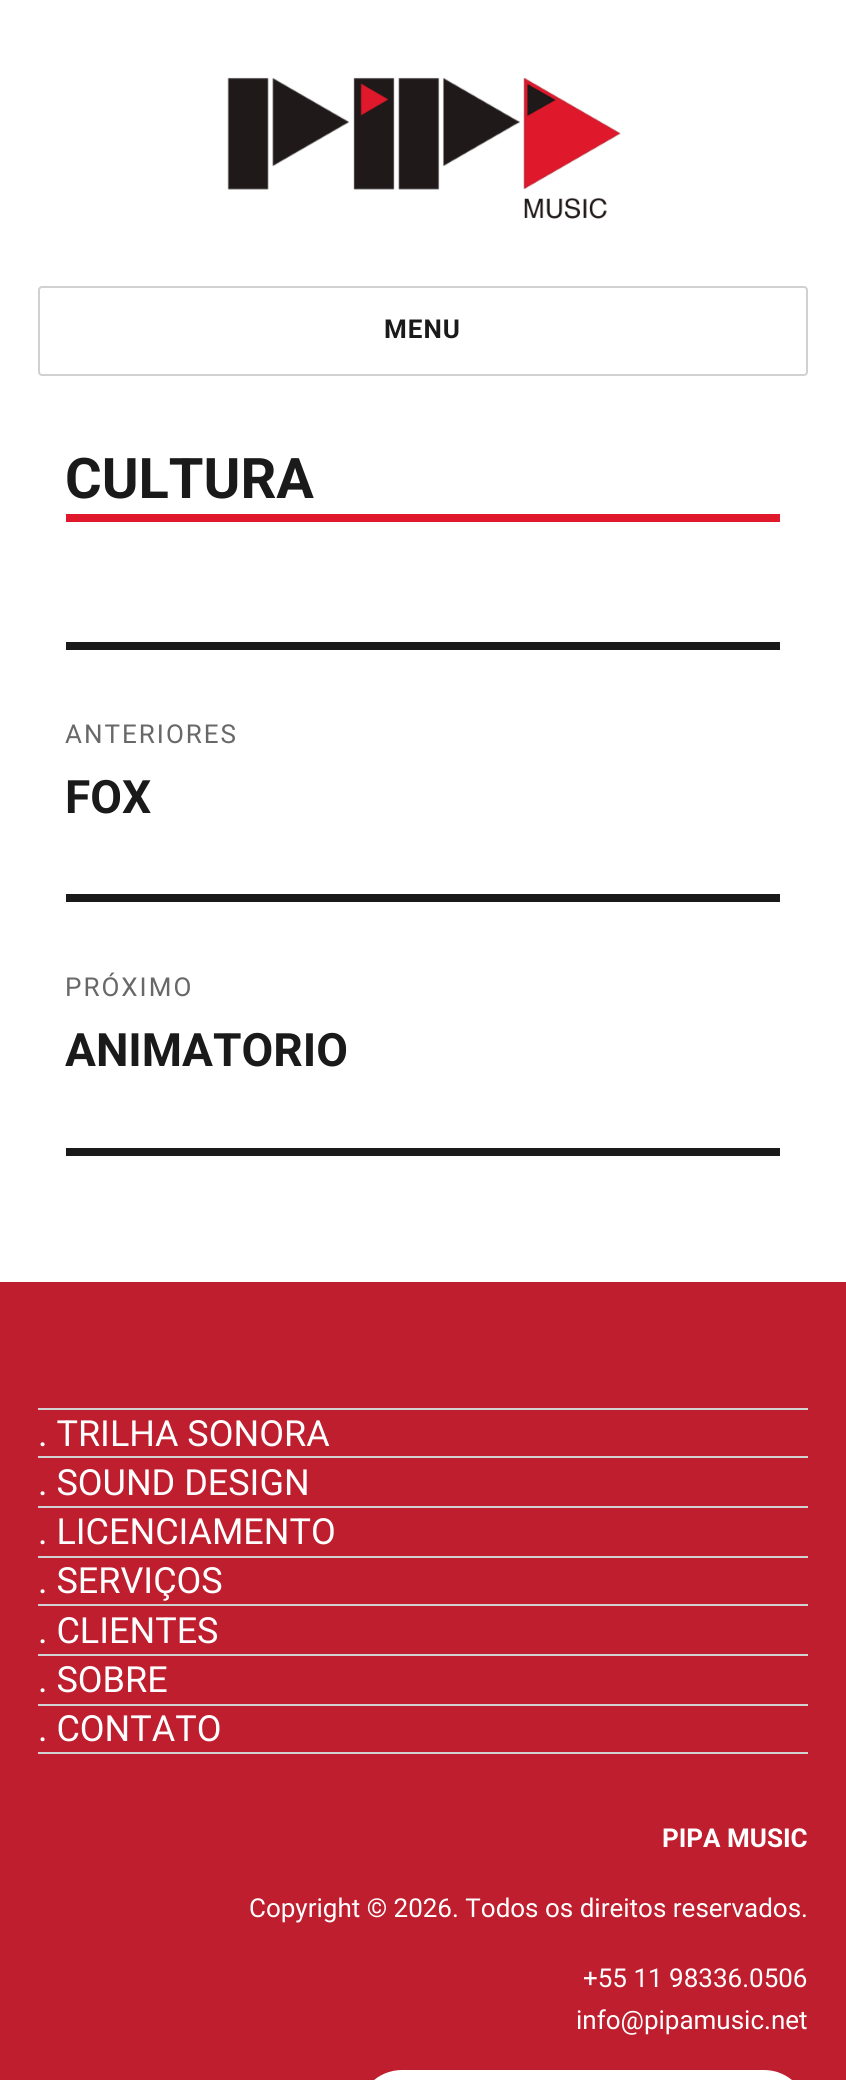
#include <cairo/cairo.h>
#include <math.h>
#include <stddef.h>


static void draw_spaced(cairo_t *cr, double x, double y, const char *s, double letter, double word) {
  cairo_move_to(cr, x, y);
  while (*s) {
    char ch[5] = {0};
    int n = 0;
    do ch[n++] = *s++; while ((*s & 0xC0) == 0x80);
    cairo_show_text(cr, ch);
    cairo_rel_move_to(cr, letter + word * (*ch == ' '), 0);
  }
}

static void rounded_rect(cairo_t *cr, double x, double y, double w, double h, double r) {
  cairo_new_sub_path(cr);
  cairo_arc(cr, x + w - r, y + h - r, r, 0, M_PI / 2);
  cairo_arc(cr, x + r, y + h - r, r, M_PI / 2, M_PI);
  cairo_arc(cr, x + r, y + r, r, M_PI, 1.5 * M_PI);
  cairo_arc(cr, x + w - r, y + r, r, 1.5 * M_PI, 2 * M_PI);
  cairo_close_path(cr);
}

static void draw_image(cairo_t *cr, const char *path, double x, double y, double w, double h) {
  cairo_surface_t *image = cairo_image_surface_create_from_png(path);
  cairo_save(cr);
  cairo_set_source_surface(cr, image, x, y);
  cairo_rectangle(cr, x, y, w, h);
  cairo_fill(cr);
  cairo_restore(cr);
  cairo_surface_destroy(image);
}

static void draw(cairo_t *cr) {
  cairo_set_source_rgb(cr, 1, 1, 1);
  cairo_paint(cr);
  draw_image(cr, "images/1.png", 227, 77, 394, 142);
  rounded_rect(cr, 39, 287, 768, 88, 3);
  cairo_set_source_rgb(cr, 209 / 255.0, 209 / 255.0, 209 / 255.0);
  cairo_stroke(cr);
  cairo_set_source_rgb(cr, 223 / 255.0, 24 / 255.0, 43 / 255.0);
  cairo_rectangle(cr, 66, 514, 714, 8);
  cairo_fill(cr);
  cairo_set_source_rgb(cr, 26 / 255.0, 26 / 255.0, 26 / 255.0);
  cairo_rectangle(cr, 66, 642, 714, 8);
  cairo_fill(cr);
  cairo_rectangle(cr, 66, 1148, 714, 8);
  cairo_fill(cr);
  cairo_rectangle(cr, 66, 894, 714, 8);
  cairo_fill(cr);
  cairo_set_source_rgb(cr, 191 / 255.0, 30 / 255.0, 46 / 255.0);
  cairo_rectangle(cr, 0, 1282, 846, 798);
  cairo_fill(cr);
  cairo_set_source_rgb(cr, 209 / 255.0, 209 / 255.0, 209 / 255.0);
  cairo_rectangle(cr, 38, 1752, 770, 2);
  cairo_fill(cr);
  cairo_rectangle(cr, 38, 1408, 770, 2);
  cairo_fill(cr);
  cairo_rectangle(cr, 38, 1456, 770, 2);
  cairo_fill(cr);
  cairo_rectangle(cr, 38, 1506, 770, 2);
  cairo_fill(cr);
  cairo_rectangle(cr, 38, 1556, 770, 2);
  cairo_fill(cr);
  cairo_rectangle(cr, 38, 1604, 770, 2);
  cairo_fill(cr);
  cairo_rectangle(cr, 38, 1654, 770, 2);
  cairo_fill(cr);
  cairo_rectangle(cr, 38, 1704, 770, 2);
  cairo_fill(cr);
  cairo_set_source_rgb(cr, 1, 1, 1);
  rounded_rect(cr, 358, 2070, 450, 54, 44);
  cairo_fill(cr);
  cairo_select_font_face(cr, "Roboto", CAIRO_FONT_SLANT_NORMAL, CAIRO_FONT_WEIGHT_BOLD);
  cairo_set_font_size(cr, 26);
  cairo_set_source_rgb(cr, 26 / 255.0, 26 / 255.0, 26 / 255.0);
  draw_spaced(cr, 384, 338, "MENU", 1, 0);
  cairo_set_font_size(cr, 56);
  cairo_move_to(cr, 65, 498);
  cairo_show_text(cr, "CULTURA");
  cairo_select_font_face(cr, "Roboto", CAIRO_FONT_SLANT_NORMAL, CAIRO_FONT_WEIGHT_NORMAL);
  cairo_set_font_size(cr, 26);
  cairo_set_source_rgb(cr, 104 / 255.0, 104 / 255.0, 104 / 255.0);
  draw_spaced(cr, 65, 743, "ANTERIORES", 2, 0);
  cairo_select_font_face(cr, "Roboto", CAIRO_FONT_SLANT_NORMAL, CAIRO_FONT_WEIGHT_BOLD);
  cairo_set_font_size(cr, 46);
  cairo_set_source_rgb(cr, 26 / 255.0, 26 / 255.0, 26 / 255.0);
  cairo_move_to(cr, 65, 813);
  cairo_show_text(cr, "FOX");
  cairo_select_font_face(cr, "Roboto", CAIRO_FONT_SLANT_NORMAL, CAIRO_FONT_WEIGHT_NORMAL);
  cairo_set_font_size(cr, 26);
  cairo_set_source_rgb(cr, 104 / 255.0, 104 / 255.0, 104 / 255.0);
  draw_spaced(cr, 65, 996, "PRÓXIMO", 2, 0);
  cairo_select_font_face(cr, "Roboto", CAIRO_FONT_SLANT_NORMAL, CAIRO_FONT_WEIGHT_BOLD);
  cairo_set_font_size(cr, 46);
  cairo_set_source_rgb(cr, 26 / 255.0, 26 / 255.0, 26 / 255.0);
  cairo_move_to(cr, 65, 1066);
  cairo_show_text(cr, "ANIMATORIO");
  cairo_select_font_face(cr, "Roboto", CAIRO_FONT_SLANT_NORMAL, CAIRO_FONT_WEIGHT_NORMAL);
  cairo_set_font_size(cr, 36);
  cairo_set_source_rgb(cr, 1, 1, 1);
  cairo_move_to(cr, 38, 1446);
  cairo_show_text(cr, ". TRILHA SONORA");
  cairo_move_to(cr, 38, 1495);
  cairo_show_text(cr, ". SOUND DESIGN");
  cairo_move_to(cr, 38, 1544);
  cairo_show_text(cr, ". LICENCIAMENTO");
  cairo_move_to(cr, 38, 1593);
  cairo_show_text(cr, ". SERVIÇOS");
  cairo_move_to(cr, 38, 1643);
  cairo_show_text(cr, ". CLIENTES");
  cairo_move_to(cr, 38, 1692);
  cairo_show_text(cr, ". SOBRE");
  cairo_move_to(cr, 38, 1741);
  cairo_show_text(cr, ". CONTATO");
  cairo_select_font_face(cr, "Roboto", CAIRO_FONT_SLANT_NORMAL, CAIRO_FONT_WEIGHT_BOLD);
  cairo_set_font_size(cr, 26);
  cairo_move_to(cr, 662, 1847);
  cairo_show_text(cr, "PIPA MUSIC");
  cairo_select_font_face(cr, "Roboto", CAIRO_FONT_SLANT_NORMAL, CAIRO_FONT_WEIGHT_NORMAL);
  cairo_move_to(cr, 249, 1917);
  cairo_show_text(cr, "Copyright © 2026. Todos os direitos reservados.");
  cairo_move_to(cr, 583, 1987);
  cairo_show_text(cr, "+55 11 98336.0506");
  cairo_move_to(cr, 576, 2029);
  cairo_show_text(cr, "info@pipamusic.net");
}

int main(void) {
  cairo_surface_t *surface = cairo_image_surface_create(CAIRO_FORMAT_RGB24, 846, 2080);
  cairo_t *cr = cairo_create(surface);
  cairo_font_options_t *options = cairo_font_options_create();
  cairo_font_options_set_hint_metrics(options, CAIRO_HINT_METRICS_OFF);
  cairo_font_options_set_hint_style(options, CAIRO_HINT_STYLE_NONE);
  cairo_set_font_options(cr, options);
  cairo_set_miter_limit(cr, 4);
  draw(cr);
  cairo_surface_write_to_png(surface, "out.png");
  cairo_font_options_destroy(options);
  cairo_destroy(cr);
  cairo_surface_destroy(surface);
  return 0;
}
